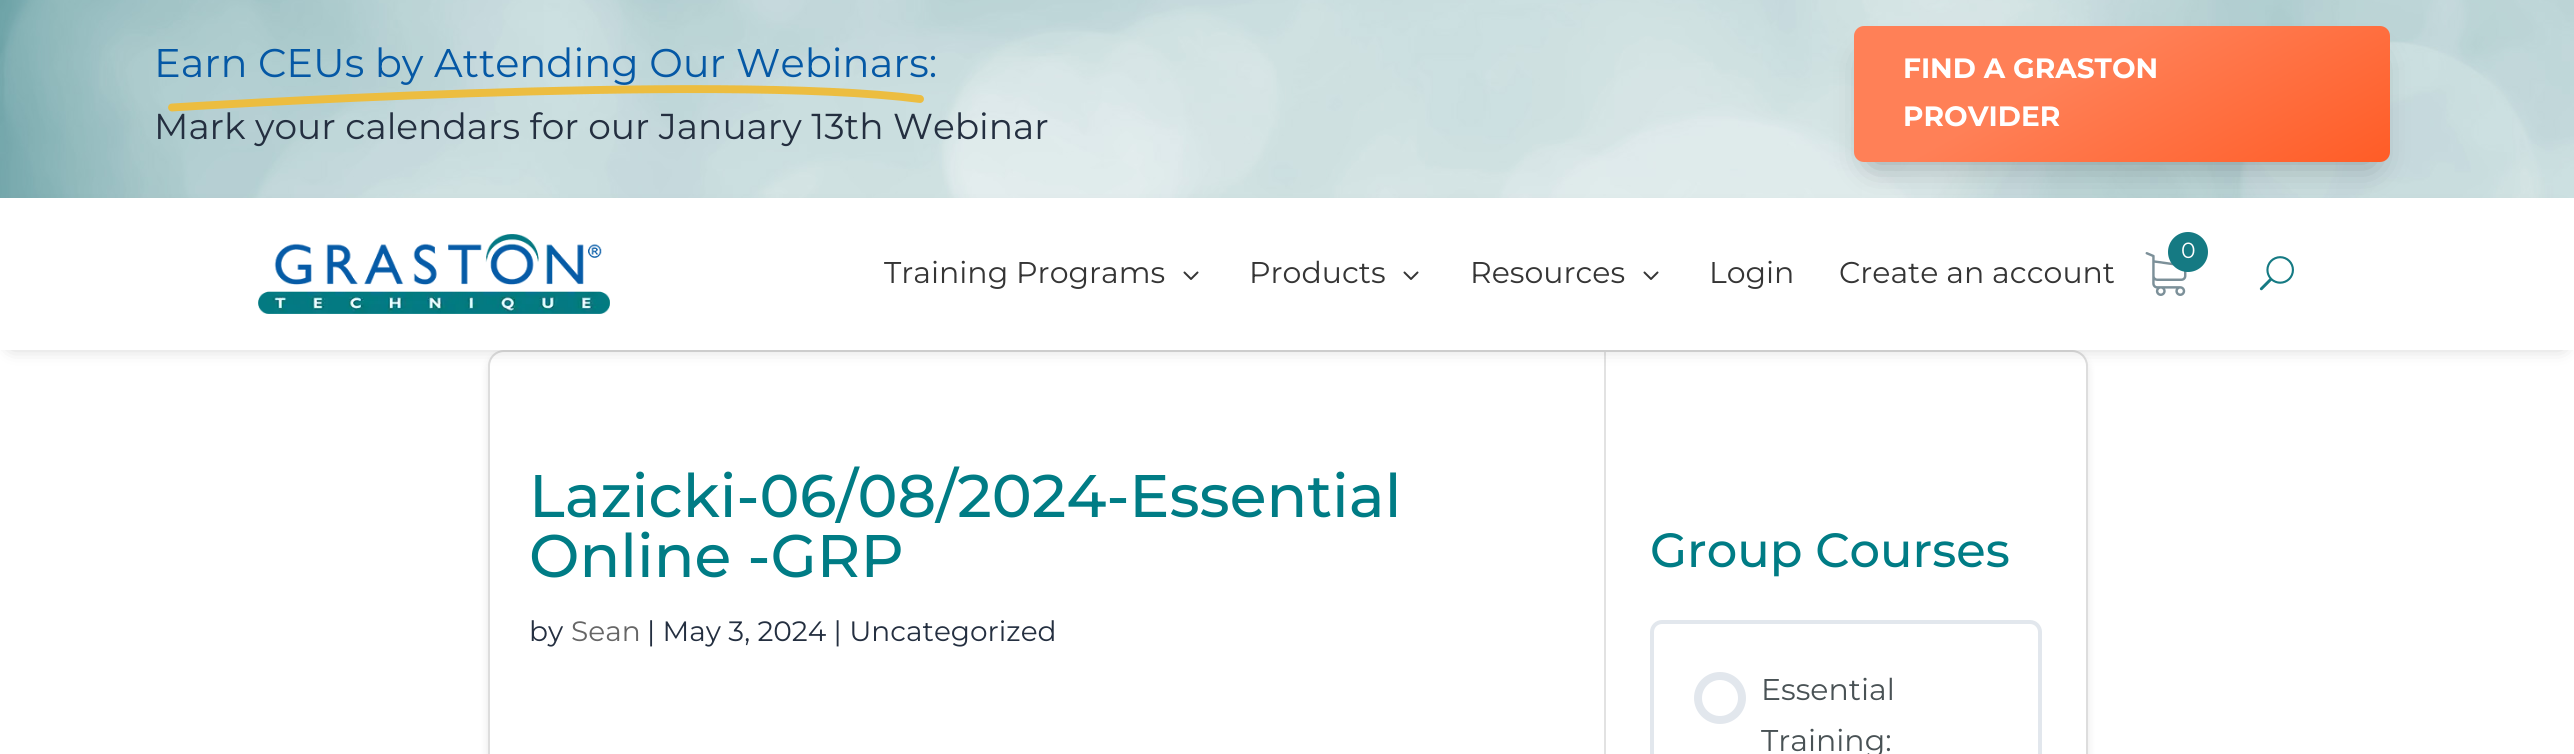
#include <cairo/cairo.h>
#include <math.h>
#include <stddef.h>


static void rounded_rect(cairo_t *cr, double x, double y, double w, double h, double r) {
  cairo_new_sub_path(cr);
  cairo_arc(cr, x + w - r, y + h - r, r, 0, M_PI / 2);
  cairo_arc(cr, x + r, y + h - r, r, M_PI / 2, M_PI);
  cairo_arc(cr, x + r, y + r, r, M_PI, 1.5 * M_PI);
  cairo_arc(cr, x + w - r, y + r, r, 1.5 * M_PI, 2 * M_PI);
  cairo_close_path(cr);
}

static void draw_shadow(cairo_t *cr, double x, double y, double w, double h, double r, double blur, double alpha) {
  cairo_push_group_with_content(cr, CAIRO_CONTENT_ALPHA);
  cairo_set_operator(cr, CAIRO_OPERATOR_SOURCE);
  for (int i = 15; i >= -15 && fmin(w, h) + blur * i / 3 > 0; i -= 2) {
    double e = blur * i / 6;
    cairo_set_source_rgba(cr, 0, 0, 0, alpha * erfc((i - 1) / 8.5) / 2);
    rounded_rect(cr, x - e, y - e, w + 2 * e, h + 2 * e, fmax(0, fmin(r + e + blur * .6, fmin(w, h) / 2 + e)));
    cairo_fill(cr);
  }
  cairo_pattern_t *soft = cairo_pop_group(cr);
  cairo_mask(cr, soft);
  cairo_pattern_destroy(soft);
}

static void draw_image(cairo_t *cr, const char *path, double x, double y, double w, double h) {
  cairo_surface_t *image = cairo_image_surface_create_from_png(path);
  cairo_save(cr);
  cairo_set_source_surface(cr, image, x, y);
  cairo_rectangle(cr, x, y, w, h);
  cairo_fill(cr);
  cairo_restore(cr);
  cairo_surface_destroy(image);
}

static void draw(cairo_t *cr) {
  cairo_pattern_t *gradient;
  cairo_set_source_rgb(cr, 1, 1, 1);
  cairo_paint(cr);
  draw_image(cr, "images/1.png", 0, 0, 2574, 198);
  cairo_new_path(cr);
  cairo_move_to(cr, 172, 107.5);
  cairo_curve_to(cr, 172, 107.5, 716, 72.5, 920, 99);
  cairo_set_source_rgb(cr, 236 / 255.0, 189 / 255.0, 64 / 255.0);
  cairo_set_line_width(cr, 7.9);
  cairo_set_line_cap(cr, CAIRO_LINE_CAP_ROUND);
  cairo_set_line_join(cr, CAIRO_LINE_JOIN_ROUND);
  cairo_stroke(cr);
  cairo_set_source_rgb(cr, 0, 0, 0);
  draw_shadow(cr, 1872, 62, 500, 100, 0, 18, 0.3);
  gradient = cairo_pattern_create_linear(2030, -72, 2214, 260);
  cairo_pattern_add_color_stop_rgba(gradient, 0.38, 1, 128 / 255.0, 87 / 255.0, 1);
  cairo_pattern_add_color_stop_rgba(gradient, 1, 1, 92 / 255.0, 38 / 255.0, 1);
  cairo_set_source(cr, gradient);
  cairo_pattern_destroy(gradient);
  rounded_rect(cr, 1854, 26, 536, 136, 10);
  cairo_fill(cr);
  cairo_set_source_rgb(cr, 0, 0, 0);
  draw_shadow(cr, 488, 354, 1600, 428, 16, 4, 0.1);
  cairo_set_source_rgb(cr, 1, 1, 1);
  rounded_rect(cr, 489, 351, 1598, 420, 15);
  cairo_fill_preserve(cr);
  cairo_set_source_rgb(cr, 221 / 255.0, 221 / 255.0, 221 / 255.0);
  cairo_set_line_width(cr, 2);
  cairo_set_line_cap(cr, CAIRO_LINE_CAP_BUTT);
  cairo_set_line_join(cr, CAIRO_LINE_JOIN_MITER);
  cairo_stroke(cr);
  cairo_set_source_rgb(cr, 226 / 255.0, 226 / 255.0, 226 / 255.0);
  cairo_rectangle(cr, 1604, 352, 2, 402);
  cairo_fill(cr);
  cairo_set_source_rgb(cr, 0, 0, 0);
  draw_shadow(cr, 12, 216, 2550, 128, 0, 10, 0.3);
  cairo_set_source_rgb(cr, 1, 1, 1);
  cairo_rectangle(cr, 0, 198, 2574, 152);
  cairo_fill(cr);
  draw_image(cr, "images/2.png", 258, 234, 352, 80);
  draw_image(cr, "images/3.png", 2145, 252, 42, 44);
  cairo_set_source_rgb(cr, 21 / 255.0, 122 / 255.0, 131 / 255.0);
  cairo_arc(cr, 2188, 252, 20, 0, 2 * M_PI);
  cairo_fill(cr);
  draw_image(cr, "images/4.png", 1183, 271, 16, 9);
  draw_image(cr, "images/4.png", 1403, 271, 16, 9);
  draw_image(cr, "images/4.png", 1643, 271, 16, 9);
  draw_image(cr, "images/5.png", 2259, 256, 35, 35);
  rounded_rect(cr, 1652, 622, 388, 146, 10);
  cairo_set_source_rgb(cr, 226 / 255.0, 231 / 255.0, 237 / 255.0);
  cairo_set_line_width(cr, 4);
  cairo_stroke(cr);
  cairo_arc(cr, 1720, 698, 22, 0, 2 * M_PI);
  cairo_set_line_width(cr, 8);
  cairo_stroke(cr);
  cairo_select_font_face(cr, "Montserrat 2 Thin", CAIRO_FONT_SLANT_NORMAL, CAIRO_FONT_WEIGHT_NORMAL);
  cairo_set_font_size(cr, 40);
  cairo_set_source_rgb(cr, 5 / 255.0, 88 / 255.0, 165 / 255.0);
  cairo_move_to(cr, 154, 77);
  cairo_show_text(cr, "Earn CEUs by Attending Our Webinars:");
  cairo_set_font_size(cr, 36);
  cairo_set_source_rgb(cr, 36 / 255.0, 47 / 255.0, 64 / 255.0);
  cairo_move_to(cr, 154, 139);
  cairo_show_text(cr, "Mark your calendars for our January 13th Webinar");
  cairo_select_font_face(cr, "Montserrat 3 Thin", CAIRO_FONT_SLANT_NORMAL, CAIRO_FONT_WEIGHT_NORMAL);
  cairo_set_font_size(cr, 28);
  cairo_set_source_rgb(cr, 1, 1, 1);
  cairo_move_to(cr, 1903, 78);
  cairo_show_text(cr, "FIND A GRASTON");
  cairo_move_to(cr, 1903, 126);
  cairo_show_text(cr, "PROVIDER");
  cairo_select_font_face(cr, "Montserrat 2 Thin", CAIRO_FONT_SLANT_NORMAL, CAIRO_FONT_WEIGHT_NORMAL);
  cairo_set_font_size(cr, 22);
  cairo_move_to(cr, 2181, 258);
  cairo_show_text(cr, "0");
  cairo_set_font_size(cr, 30);
  cairo_set_source_rgb(cr, 53 / 255.0, 53 / 255.0, 53 / 255.0);
  cairo_move_to(cr, 884, 283);
  cairo_show_text(cr, "Training Programs");
  cairo_move_to(cr, 1249, 283);
  cairo_show_text(cr, "Products");
  cairo_move_to(cr, 1470, 283);
  cairo_show_text(cr, "Resources");
  cairo_move_to(cr, 1709, 283);
  cairo_show_text(cr, "Login");
  cairo_move_to(cr, 1839, 283);
  cairo_show_text(cr, "Create an account");
  cairo_select_font_face(cr, "Montserrat Thin", CAIRO_FONT_SLANT_NORMAL, CAIRO_FONT_WEIGHT_NORMAL);
  cairo_set_font_size(cr, 60);
  cairo_set_source_rgb(cr, 0, 124 / 255.0, 133 / 255.0);
  cairo_move_to(cr, 529, 517);
  cairo_show_text(cr, "Lazicki-06/08/2024-Essential");
  cairo_move_to(cr, 529, 577);
  cairo_show_text(cr, "Online -GRP");
  cairo_select_font_face(cr, "Montserrat 2 Thin", CAIRO_FONT_SLANT_NORMAL, CAIRO_FONT_WEIGHT_NORMAL);
  cairo_set_font_size(cr, 28);
  cairo_set_source_rgb(cr, 36 / 255.0, 47 / 255.0, 64 / 255.0);
  cairo_move_to(cr, 529, 641);
  cairo_show_text(cr, "by");
  cairo_set_source_rgb(cr, 102 / 255.0, 102 / 255.0, 102 / 255.0);
  cairo_move_to(cr, 571, 641);
  cairo_show_text(cr, "Sean");
  cairo_set_source_rgb(cr, 36 / 255.0, 47 / 255.0, 64 / 255.0);
  cairo_move_to(cr, 647, 641);
  cairo_show_text(cr, "| May 3, 2024 | Uncategorized");
  cairo_select_font_face(cr, "Montserrat Thin", CAIRO_FONT_SLANT_NORMAL, CAIRO_FONT_WEIGHT_NORMAL);
  cairo_set_font_size(cr, 48);
  cairo_set_source_rgb(cr, 0, 124 / 255.0, 133 / 255.0);
  cairo_move_to(cr, 1650, 567);
  cairo_show_text(cr, "Group Courses");
  cairo_select_font_face(cr, "Montserrat 2 Thin", CAIRO_FONT_SLANT_NORMAL, CAIRO_FONT_WEIGHT_NORMAL);
  cairo_set_font_size(cr, 30);
  cairo_set_source_rgb(cr, 73 / 255.0, 82 / 255.0, 85 / 255.0);
  cairo_move_to(cr, 1761, 700);
  cairo_show_text(cr, "Essential");
  cairo_move_to(cr, 1761, 751);
  cairo_show_text(cr, "Training:");
}

int main(void) {
  cairo_surface_t *surface = cairo_image_surface_create(CAIRO_FORMAT_RGB24, 2574, 754);
  cairo_t *cr = cairo_create(surface);
  cairo_font_options_t *options = cairo_font_options_create();
  cairo_font_options_set_hint_metrics(options, CAIRO_HINT_METRICS_OFF);
  cairo_font_options_set_hint_style(options, CAIRO_HINT_STYLE_NONE);
  cairo_set_font_options(cr, options);
  cairo_set_miter_limit(cr, 4);
  draw(cr);
  cairo_surface_write_to_png(surface, "out.png");
  cairo_font_options_destroy(options);
  cairo_destroy(cr);
  cairo_surface_destroy(surface);
  return 0;
}
